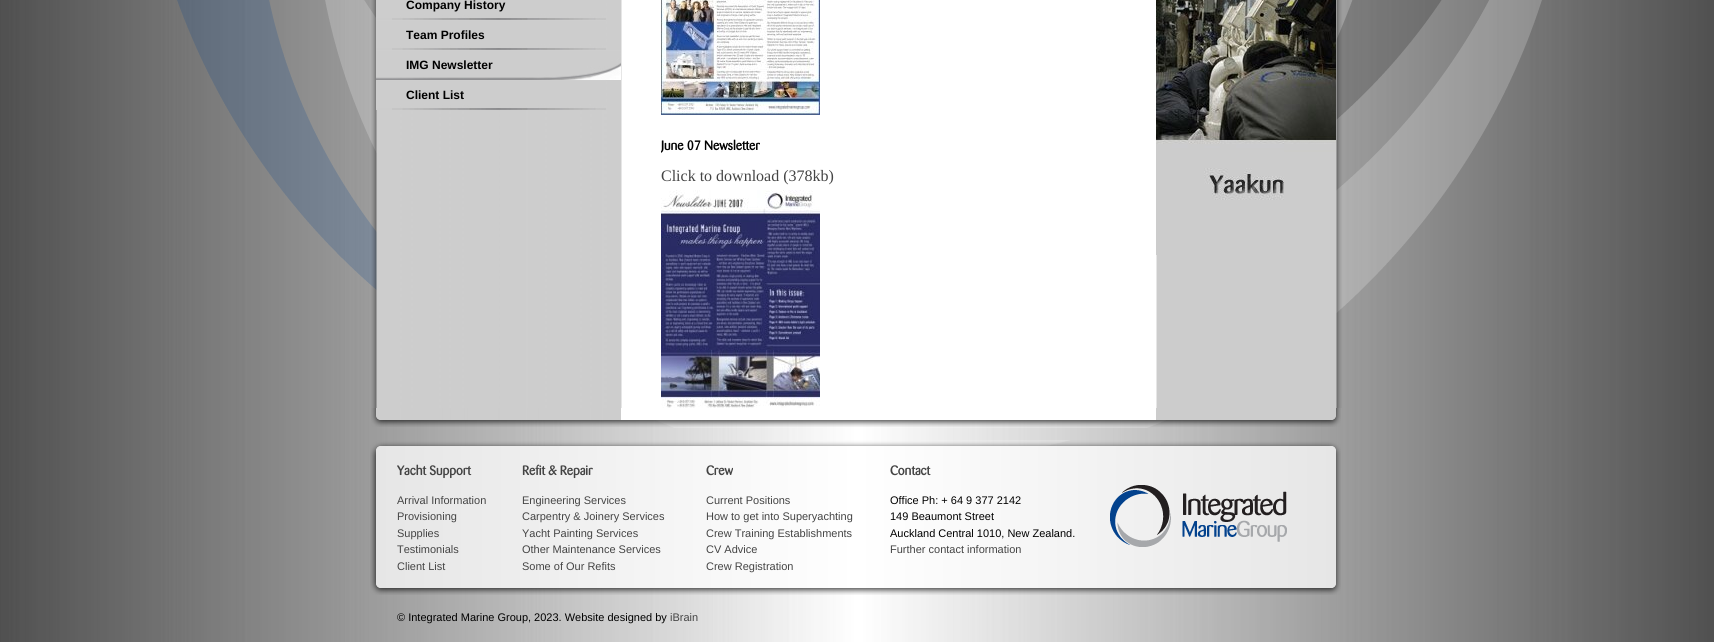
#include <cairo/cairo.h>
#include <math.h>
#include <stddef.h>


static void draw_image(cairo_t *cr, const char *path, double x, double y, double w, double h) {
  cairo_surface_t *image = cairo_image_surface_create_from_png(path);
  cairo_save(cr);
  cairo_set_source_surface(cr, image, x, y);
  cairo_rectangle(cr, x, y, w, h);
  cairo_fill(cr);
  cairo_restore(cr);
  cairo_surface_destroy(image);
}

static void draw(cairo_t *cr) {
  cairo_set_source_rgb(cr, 1, 1, 1);
  cairo_paint(cr);
  draw_image(cr, "images/1.png", 0, 0, 1714, 642);
  draw_image(cr, "images/2.png", 177, 0, 1365, 428);
  draw_image(cr, "images/3.png", 371, 0, 971, 408);
  draw_image(cr, "images/4.png", 376, 0, 230, 20);
  draw_image(cr, "images/5.png", 376, 20, 230, 30);
  draw_image(cr, "images/6.png", 376, 50, 245, 30);
  draw_image(cr, "images/5.png", 376, 80, 230, 30);
  draw_image(cr, "images/7.png", 661, 0, 159, 115);
  draw_image(cr, "images/8.png", 661, 190, 159, 218);
  draw_image(cr, "images/9.png", 1156, 0, 180, 255);
  draw_image(cr, "images/10.png", 371, 408, 970, 19);
  draw_image(cr, "images/11.png", 370, 440, 971, 155);
  draw_image(cr, "images/12.png", 1110, 485, 177, 62);
  cairo_select_font_face(cr, "Liberation Sans", CAIRO_FONT_SLANT_NORMAL, CAIRO_FONT_WEIGHT_BOLD);
  cairo_set_font_size(cr, 12);
  cairo_set_source_rgb(cr, 0, 0, 0);
  cairo_move_to(cr, 406, 9);
  cairo_show_text(cr, "Company History");
  cairo_move_to(cr, 406, 39);
  cairo_show_text(cr, "Team Profiles");
  cairo_move_to(cr, 406, 69);
  cairo_show_text(cr, "IMG Newsletter");
  cairo_move_to(cr, 406, 99);
  cairo_show_text(cr, "Client List");
  cairo_save(cr);
  cairo_rectangle(cr, 661, 125, 200, 283);
  cairo_clip(cr);
  cairo_select_font_face(cr, "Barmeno", CAIRO_FONT_SLANT_NORMAL, CAIRO_FONT_WEIGHT_BOLD);
  cairo_set_font_size(cr, 13);
  cairo_move_to(cr, 661, 150);
  cairo_show_text(cr, "June 07 Newsletter");
  cairo_restore(cr);
  cairo_select_font_face(cr, "Liberation Serif", CAIRO_FONT_SLANT_NORMAL, CAIRO_FONT_WEIGHT_NORMAL);
  cairo_set_font_size(cr, 16);
  cairo_set_source_rgb(cr, 68 / 255.0, 68 / 255.0, 68 / 255.0);
  cairo_move_to(cr, 661, 181);
  cairo_show_text(cr, "Click to download (378kb)");
  cairo_select_font_face(cr, "Barmeno", CAIRO_FONT_SLANT_NORMAL, CAIRO_FONT_WEIGHT_BOLD);
  cairo_set_font_size(cr, 13);
  cairo_move_to(cr, 397, 475);
  cairo_show_text(cr, "Yacht Support");
  cairo_select_font_face(cr, "Liberation Sans", CAIRO_FONT_SLANT_NORMAL, CAIRO_FONT_WEIGHT_NORMAL);
  cairo_set_font_size(cr, 11);
  cairo_move_to(cr, 397, 504);
  cairo_show_text(cr, "Arrival Information");
  cairo_move_to(cr, 397, 520);
  cairo_show_text(cr, "Provisioning");
  cairo_move_to(cr, 397, 537);
  cairo_show_text(cr, "Supplies");
  cairo_move_to(cr, 397, 553);
  cairo_show_text(cr, "Testimonials");
  cairo_move_to(cr, 397, 570);
  cairo_show_text(cr, "Client List");
  cairo_select_font_face(cr, "Barmeno", CAIRO_FONT_SLANT_NORMAL, CAIRO_FONT_WEIGHT_BOLD);
  cairo_set_font_size(cr, 13);
  cairo_move_to(cr, 522, 475);
  cairo_show_text(cr, "Refit & Repair");
  cairo_select_font_face(cr, "Liberation Sans", CAIRO_FONT_SLANT_NORMAL, CAIRO_FONT_WEIGHT_NORMAL);
  cairo_set_font_size(cr, 11);
  cairo_move_to(cr, 522, 504);
  cairo_show_text(cr, "Engineering Services");
  cairo_move_to(cr, 522, 520);
  cairo_show_text(cr, "Carpentry & Joinery Services");
  cairo_move_to(cr, 522, 537);
  cairo_show_text(cr, "Yacht Painting Services");
  cairo_move_to(cr, 522, 553);
  cairo_show_text(cr, "Other Maintenance Services");
  cairo_move_to(cr, 522, 570);
  cairo_show_text(cr, "Some of Our Refits");
  cairo_select_font_face(cr, "Barmeno", CAIRO_FONT_SLANT_NORMAL, CAIRO_FONT_WEIGHT_BOLD);
  cairo_set_font_size(cr, 13);
  cairo_move_to(cr, 706, 475);
  cairo_show_text(cr, "Crew");
  cairo_select_font_face(cr, "Liberation Sans", CAIRO_FONT_SLANT_NORMAL, CAIRO_FONT_WEIGHT_NORMAL);
  cairo_set_font_size(cr, 11);
  cairo_move_to(cr, 706, 504);
  cairo_show_text(cr, "Current Positions");
  cairo_move_to(cr, 706, 520);
  cairo_show_text(cr, "How to get into Superyachting");
  cairo_move_to(cr, 706, 537);
  cairo_show_text(cr, "Crew Training Establishments");
  cairo_move_to(cr, 706, 553);
  cairo_show_text(cr, "CV Advice");
  cairo_move_to(cr, 706, 570);
  cairo_show_text(cr, "Crew Registration");
  cairo_select_font_face(cr, "Barmeno", CAIRO_FONT_SLANT_NORMAL, CAIRO_FONT_WEIGHT_BOLD);
  cairo_set_font_size(cr, 13);
  cairo_move_to(cr, 890, 475);
  cairo_show_text(cr, "Contact");
  cairo_select_font_face(cr, "Liberation Sans", CAIRO_FONT_SLANT_NORMAL, CAIRO_FONT_WEIGHT_NORMAL);
  cairo_set_font_size(cr, 11);
  cairo_set_source_rgb(cr, 0, 0, 0);
  cairo_move_to(cr, 890, 504);
  cairo_show_text(cr, "Office Ph: + 64 9 377 2142");
  cairo_move_to(cr, 890, 520);
  cairo_show_text(cr, "149 Beaumont Street");
  cairo_move_to(cr, 890, 537);
  cairo_show_text(cr, "Auckland Central 1010, New Zealand.");
  cairo_set_source_rgb(cr, 68 / 255.0, 68 / 255.0, 68 / 255.0);
  cairo_move_to(cr, 890, 553);
  cairo_show_text(cr, "Further contact information");
  cairo_set_source_rgb(cr, 0, 0, 0);
  cairo_move_to(cr, 397, 621);
  cairo_show_text(cr, "© Integrated Marine Group, 2023. Website designed by");
  cairo_set_source_rgb(cr, 68 / 255.0, 68 / 255.0, 68 / 255.0);
  cairo_move_to(cr, 670, 621);
  cairo_show_text(cr, "iBrain");
}

int main(void) {
  cairo_surface_t *surface = cairo_image_surface_create(CAIRO_FORMAT_RGB24, 1714, 642);
  cairo_t *cr = cairo_create(surface);
  cairo_font_options_t *options = cairo_font_options_create();
  cairo_font_options_set_hint_metrics(options, CAIRO_HINT_METRICS_OFF);
  cairo_font_options_set_hint_style(options, CAIRO_HINT_STYLE_NONE);
  cairo_set_font_options(cr, options);
  cairo_set_miter_limit(cr, 4);
  draw(cr);
  cairo_surface_write_to_png(surface, "out.png");
  cairo_font_options_destroy(options);
  cairo_destroy(cr);
  cairo_surface_destroy(surface);
  return 0;
}
